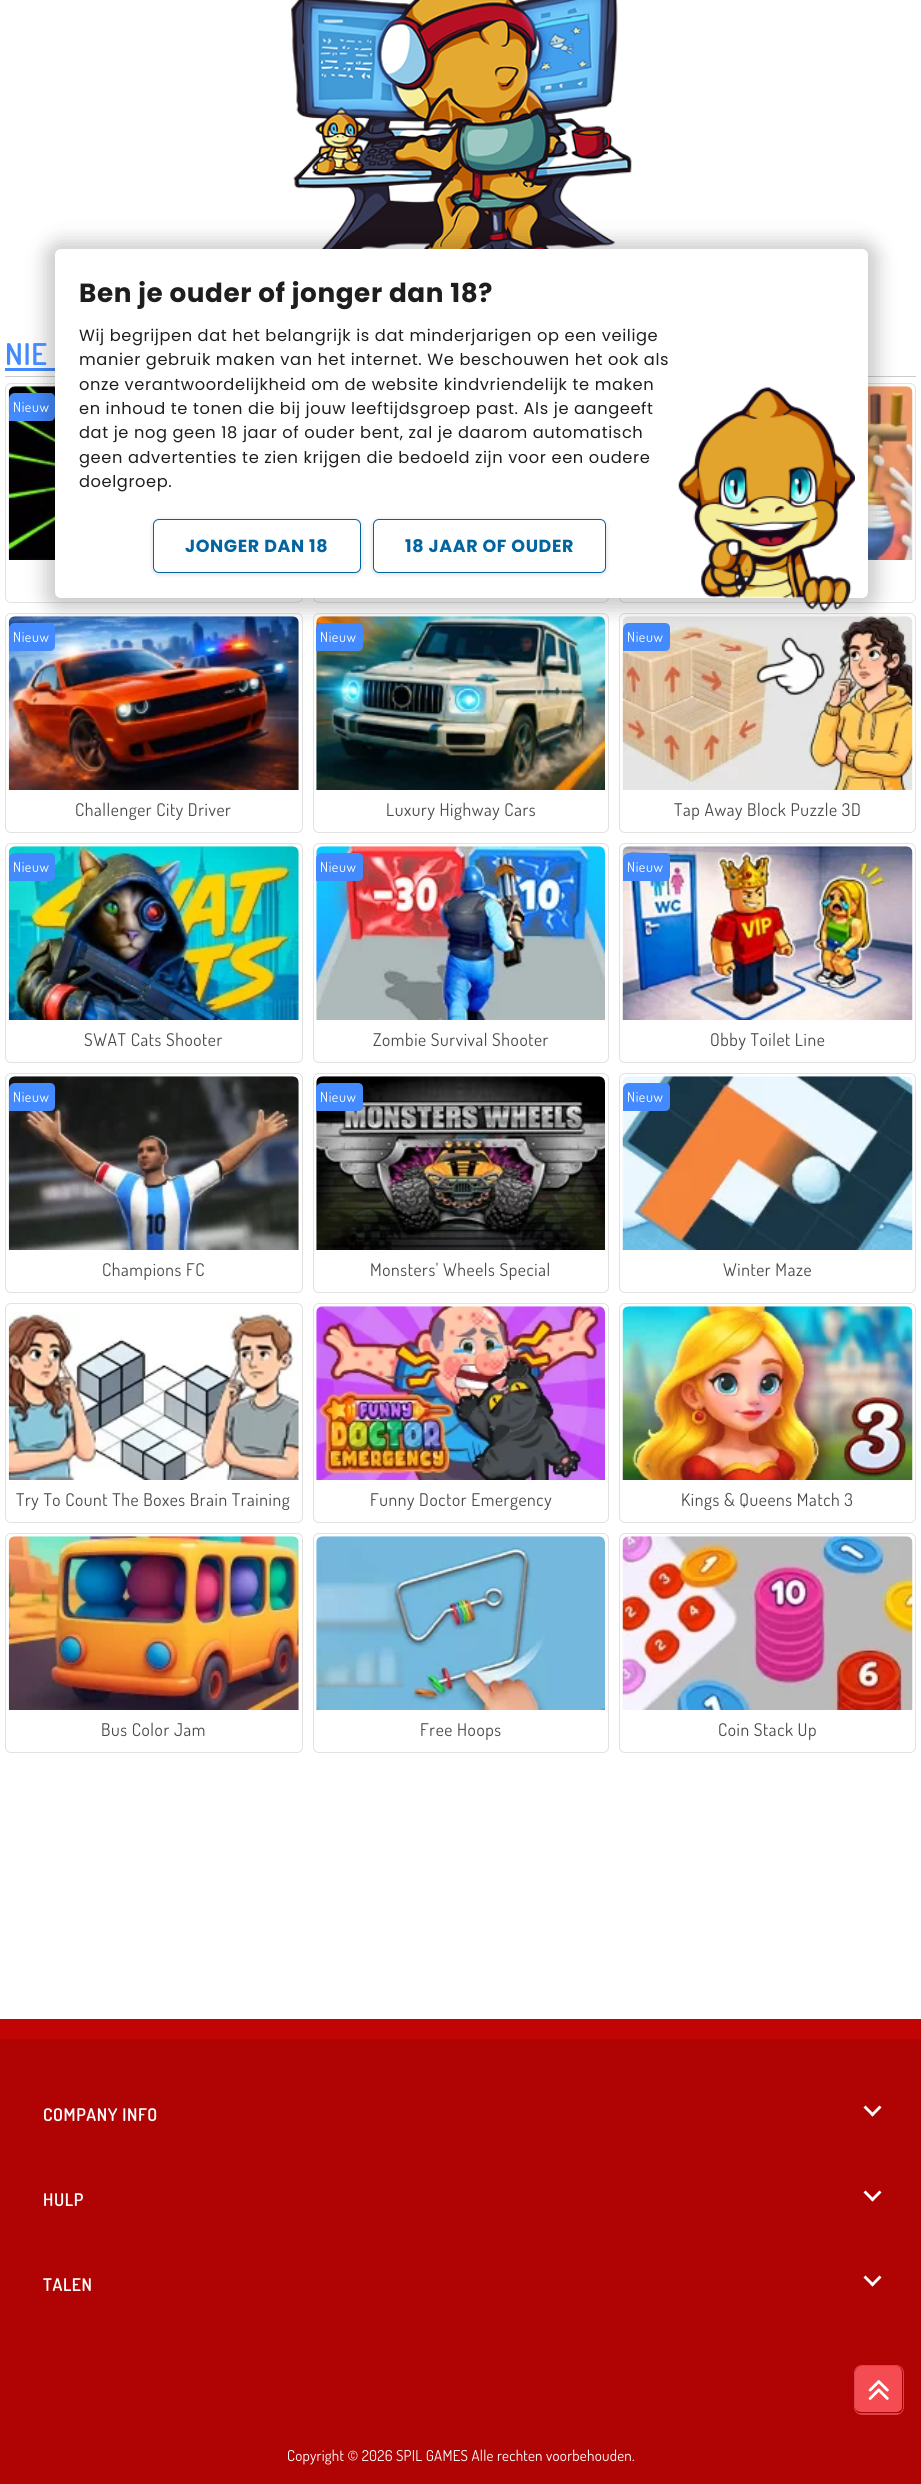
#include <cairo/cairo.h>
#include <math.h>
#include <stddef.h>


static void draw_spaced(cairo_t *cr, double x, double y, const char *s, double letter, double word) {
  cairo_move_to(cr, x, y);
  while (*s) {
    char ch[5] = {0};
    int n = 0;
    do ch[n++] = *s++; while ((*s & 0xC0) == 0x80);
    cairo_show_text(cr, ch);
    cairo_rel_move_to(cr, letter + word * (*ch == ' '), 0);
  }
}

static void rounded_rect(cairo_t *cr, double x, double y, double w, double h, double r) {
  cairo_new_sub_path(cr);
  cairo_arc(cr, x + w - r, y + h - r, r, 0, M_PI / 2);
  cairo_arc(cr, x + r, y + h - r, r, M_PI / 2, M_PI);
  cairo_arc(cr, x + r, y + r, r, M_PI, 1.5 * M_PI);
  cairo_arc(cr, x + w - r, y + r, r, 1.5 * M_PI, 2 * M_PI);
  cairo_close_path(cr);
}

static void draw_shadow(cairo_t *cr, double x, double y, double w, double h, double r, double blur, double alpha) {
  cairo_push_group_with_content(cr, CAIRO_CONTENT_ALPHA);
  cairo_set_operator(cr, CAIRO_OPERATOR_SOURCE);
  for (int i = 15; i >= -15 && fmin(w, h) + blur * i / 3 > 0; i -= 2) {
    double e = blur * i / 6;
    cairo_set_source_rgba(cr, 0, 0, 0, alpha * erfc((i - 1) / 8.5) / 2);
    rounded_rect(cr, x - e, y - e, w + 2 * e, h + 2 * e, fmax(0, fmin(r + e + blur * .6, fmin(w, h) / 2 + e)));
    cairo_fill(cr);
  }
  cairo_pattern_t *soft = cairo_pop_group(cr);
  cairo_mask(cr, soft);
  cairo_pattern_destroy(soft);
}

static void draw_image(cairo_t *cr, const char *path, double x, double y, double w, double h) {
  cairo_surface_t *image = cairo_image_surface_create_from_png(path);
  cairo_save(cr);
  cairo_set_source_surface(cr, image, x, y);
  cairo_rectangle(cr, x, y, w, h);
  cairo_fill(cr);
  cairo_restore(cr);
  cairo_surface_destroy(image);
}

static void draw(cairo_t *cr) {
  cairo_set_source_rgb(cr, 176 / 255.0, 4 / 255.0, 4 / 255.0);
  cairo_paint(cr);
  cairo_set_source_rgb(cr, 1, 1, 1);
  cairo_rectangle(cr, 0, 0, 921, 2019);
  cairo_fill(cr);
  draw_image(cr, "images/2.png", 291, 0, 341, 249);
  cairo_set_source_rgb(cr, 204 / 255.0, 204 / 255.0, 204 / 255.0);
  cairo_rectangle(cr, 5, 376, 911, 1);
  cairo_fill(cr);
  cairo_set_source_rgb(cr, 67 / 255.0, 138 / 255.0, 254 / 255.0);
  cairo_rectangle(cr, 5, 368, 50, 3);
  cairo_fill(cr);
  rounded_rect(cr, 5.5, 383.5, 297, 219, 5.5);
  cairo_set_source_rgb(cr, 226 / 255.0, 226 / 255.0, 226 / 255.0);
  cairo_set_line_width(cr, 1);
  cairo_stroke(cr);
  draw_image(cr, "images/3.png", 8, 386, 47, 174);
  cairo_set_source_rgb(cr, 67 / 255.0, 138 / 255.0, 254 / 255.0);
  cairo_new_path(cr);
  cairo_move_to(cr, 15, 393);
  cairo_line_to(cr, 50, 393);
  cairo_curve_to(cr, 53, 393, 55, 395, 55, 398);
  cairo_line_to(cr, 55, 416);
  cairo_curve_to(cr, 55, 419, 53, 421, 50, 421);
  cairo_line_to(cr, 9, 421);
  cairo_line_to(cr, 9, 399);
  cairo_curve_to(cr, 9, 395.5, 11.5, 393, 15, 393);
  cairo_close_path(cr);
  cairo_fill(cr);
  rounded_rect(cr, 313.5, 383.5, 295, 219, 5.5);
  cairo_set_source_rgb(cr, 226 / 255.0, 226 / 255.0, 226 / 255.0);
  cairo_stroke(cr);
  rounded_rect(cr, 619.5, 383.5, 296, 219, 5.5);
  cairo_stroke(cr);
  draw_image(cr, "images/4.png", 868, 386, 45, 174);
  rounded_rect(cr, 5.5, 613.5, 297, 219, 5.5);
  cairo_stroke(cr);
  draw_image(cr, "images/5.png", 8, 616, 291, 174);
  cairo_set_source_rgb(cr, 67 / 255.0, 138 / 255.0, 254 / 255.0);
  cairo_new_path(cr);
  cairo_move_to(cr, 15, 623);
  cairo_line_to(cr, 50, 623);
  cairo_curve_to(cr, 53, 623, 55, 625, 55, 628);
  cairo_line_to(cr, 55, 646);
  cairo_curve_to(cr, 55, 649, 53, 651, 50, 651);
  cairo_line_to(cr, 9, 651);
  cairo_line_to(cr, 9, 629);
  cairo_curve_to(cr, 9, 625.5, 11.5, 623, 15, 623);
  cairo_close_path(cr);
  cairo_fill(cr);
  rounded_rect(cr, 313.5, 613.5, 295, 219, 5.5);
  cairo_set_source_rgb(cr, 226 / 255.0, 226 / 255.0, 226 / 255.0);
  cairo_stroke(cr);
  draw_image(cr, "images/6.png", 316, 616, 289, 174);
  cairo_set_source_rgb(cr, 67 / 255.0, 138 / 255.0, 254 / 255.0);
  cairo_new_path(cr);
  cairo_move_to(cr, 322, 623);
  cairo_line_to(cr, 358, 623);
  cairo_curve_to(cr, 361, 623, 363, 625, 363, 628);
  cairo_line_to(cr, 363, 646);
  cairo_curve_to(cr, 363, 649, 361, 651, 358, 651);
  cairo_line_to(cr, 316, 651);
  cairo_line_to(cr, 316, 629);
  cairo_curve_to(cr, 316, 625.5, 318.5, 623, 322, 623);
  cairo_close_path(cr);
  cairo_fill(cr);
  rounded_rect(cr, 619.5, 613.5, 296, 219, 5.5);
  cairo_set_source_rgb(cr, 226 / 255.0, 226 / 255.0, 226 / 255.0);
  cairo_stroke(cr);
  draw_image(cr, "images/7.png", 622, 616, 291, 174);
  cairo_set_source_rgb(cr, 67 / 255.0, 138 / 255.0, 254 / 255.0);
  cairo_new_path(cr);
  cairo_move_to(cr, 629, 623);
  cairo_line_to(cr, 665, 623);
  cairo_curve_to(cr, 668, 623, 670, 625, 670, 628);
  cairo_line_to(cr, 670, 646);
  cairo_curve_to(cr, 670, 649, 668, 651, 665, 651);
  cairo_line_to(cr, 623, 651);
  cairo_line_to(cr, 623, 629);
  cairo_curve_to(cr, 623, 625.5, 625.5, 623, 629, 623);
  cairo_close_path(cr);
  cairo_fill(cr);
  cairo_set_source_rgb(cr, 0, 0, 0);
  draw_shadow(cr, 45, 241, 833, 369, 16, 9.5, 0.2);
  cairo_set_source_rgb(cr, 1, 1, 1);
  rounded_rect(cr, 55, 249, 813, 349, 6);
  cairo_fill(cr);
  cairo_set_source_rgb(cr, 0, 0, 0);
  draw_shadow(cr, 153, 520, 208, 54, 6, 2.5, 0.16);
  cairo_set_source_rgb(cr, 1, 1, 1);
  rounded_rect(cr, 153.5, 519.5, 207, 53, 5.5);
  cairo_fill_preserve(cr);
  cairo_set_source_rgb(cr, 0, 101 / 255.0, 160 / 255.0);
  cairo_stroke(cr);
  cairo_set_source_rgb(cr, 0, 0, 0);
  draw_shadow(cr, 373, 520, 233, 54, 6, 2.5, 0.16);
  cairo_set_source_rgb(cr, 1, 1, 1);
  rounded_rect(cr, 373.5, 519.5, 232, 53, 5.5);
  cairo_fill_preserve(cr);
  cairo_set_source_rgb(cr, 0, 101 / 255.0, 160 / 255.0);
  cairo_stroke(cr);
  draw_image(cr, "images/1.png", 678, 387, 177, 225);
  rounded_rect(cr, 5.5, 843.5, 297, 219, 5.5);
  cairo_set_source_rgb(cr, 226 / 255.0, 226 / 255.0, 226 / 255.0);
  cairo_stroke(cr);
  draw_image(cr, "images/8.png", 8, 846, 291, 174);
  cairo_set_source_rgb(cr, 67 / 255.0, 138 / 255.0, 254 / 255.0);
  cairo_new_path(cr);
  cairo_move_to(cr, 15, 853);
  cairo_line_to(cr, 50, 853);
  cairo_curve_to(cr, 53, 853, 55, 855, 55, 858);
  cairo_line_to(cr, 55, 876);
  cairo_curve_to(cr, 55, 879, 53, 881, 50, 881);
  cairo_line_to(cr, 9, 881);
  cairo_line_to(cr, 9, 859);
  cairo_curve_to(cr, 9, 855.5, 11.5, 853, 15, 853);
  cairo_close_path(cr);
  cairo_fill(cr);
  rounded_rect(cr, 313.5, 843.5, 295, 219, 5.5);
  cairo_set_source_rgb(cr, 226 / 255.0, 226 / 255.0, 226 / 255.0);
  cairo_stroke(cr);
  draw_image(cr, "images/9.png", 316, 846, 289, 174);
  cairo_set_source_rgb(cr, 67 / 255.0, 138 / 255.0, 254 / 255.0);
  cairo_new_path(cr);
  cairo_move_to(cr, 322, 853);
  cairo_line_to(cr, 358, 853);
  cairo_curve_to(cr, 361, 853, 363, 855, 363, 858);
  cairo_line_to(cr, 363, 876);
  cairo_curve_to(cr, 363, 879, 361, 881, 358, 881);
  cairo_line_to(cr, 316, 881);
  cairo_line_to(cr, 316, 859);
  cairo_curve_to(cr, 316, 855.5, 318.5, 853, 322, 853);
  cairo_close_path(cr);
  cairo_fill(cr);
  rounded_rect(cr, 619.5, 843.5, 296, 219, 5.5);
  cairo_set_source_rgb(cr, 226 / 255.0, 226 / 255.0, 226 / 255.0);
  cairo_stroke(cr);
  draw_image(cr, "images/10.png", 622, 846, 291, 174);
  cairo_set_source_rgb(cr, 67 / 255.0, 138 / 255.0, 254 / 255.0);
  cairo_new_path(cr);
  cairo_move_to(cr, 629, 853);
  cairo_line_to(cr, 665, 853);
  cairo_curve_to(cr, 668, 853, 670, 855, 670, 858);
  cairo_line_to(cr, 670, 876);
  cairo_curve_to(cr, 670, 879, 668, 881, 665, 881);
  cairo_line_to(cr, 623, 881);
  cairo_line_to(cr, 623, 859);
  cairo_curve_to(cr, 623, 855.5, 625.5, 853, 629, 853);
  cairo_close_path(cr);
  cairo_fill(cr);
  rounded_rect(cr, 5.5, 1073.5, 297, 219, 5.5);
  cairo_set_source_rgb(cr, 226 / 255.0, 226 / 255.0, 226 / 255.0);
  cairo_stroke(cr);
  draw_image(cr, "images/11.png", 8, 1076, 291, 174);
  cairo_set_source_rgb(cr, 67 / 255.0, 138 / 255.0, 254 / 255.0);
  cairo_new_path(cr);
  cairo_move_to(cr, 15, 1083);
  cairo_line_to(cr, 50, 1083);
  cairo_curve_to(cr, 53, 1083, 55, 1085, 55, 1088);
  cairo_line_to(cr, 55, 1106);
  cairo_curve_to(cr, 55, 1109, 53, 1111, 50, 1111);
  cairo_line_to(cr, 9, 1111);
  cairo_line_to(cr, 9, 1089);
  cairo_curve_to(cr, 9, 1085.5, 11.5, 1083, 15, 1083);
  cairo_close_path(cr);
  cairo_fill(cr);
  rounded_rect(cr, 313.5, 1073.5, 295, 219, 5.5);
  cairo_set_source_rgb(cr, 226 / 255.0, 226 / 255.0, 226 / 255.0);
  cairo_stroke(cr);
  draw_image(cr, "images/12.png", 316, 1076, 289, 174);
  cairo_set_source_rgb(cr, 67 / 255.0, 138 / 255.0, 254 / 255.0);
  cairo_new_path(cr);
  cairo_move_to(cr, 322, 1083);
  cairo_line_to(cr, 358, 1083);
  cairo_curve_to(cr, 361, 1083, 363, 1085, 363, 1088);
  cairo_line_to(cr, 363, 1106);
  cairo_curve_to(cr, 363, 1109, 361, 1111, 358, 1111);
  cairo_line_to(cr, 316, 1111);
  cairo_line_to(cr, 316, 1089);
  cairo_curve_to(cr, 316, 1085.5, 318.5, 1083, 322, 1083);
  cairo_close_path(cr);
  cairo_fill(cr);
  rounded_rect(cr, 619.5, 1073.5, 296, 219, 5.5);
  cairo_set_source_rgb(cr, 226 / 255.0, 226 / 255.0, 226 / 255.0);
  cairo_stroke(cr);
  draw_image(cr, "images/13.png", 622, 1076, 291, 174);
  cairo_set_source_rgb(cr, 67 / 255.0, 138 / 255.0, 254 / 255.0);
  cairo_new_path(cr);
  cairo_move_to(cr, 629, 1083);
  cairo_line_to(cr, 665, 1083);
  cairo_curve_to(cr, 668, 1083, 670, 1085, 670, 1088);
  cairo_line_to(cr, 670, 1106);
  cairo_curve_to(cr, 670, 1109, 668, 1111, 665, 1111);
  cairo_line_to(cr, 623, 1111);
  cairo_line_to(cr, 623, 1089);
  cairo_curve_to(cr, 623, 1085.5, 625.5, 1083, 629, 1083);
  cairo_close_path(cr);
  cairo_fill(cr);
  rounded_rect(cr, 5.5, 1303.5, 297, 219, 5.5);
  cairo_set_source_rgb(cr, 226 / 255.0, 226 / 255.0, 226 / 255.0);
  cairo_stroke(cr);
  draw_image(cr, "images/14.png", 8, 1312, 291, 168);
  rounded_rect(cr, 313.5, 1303.5, 295, 219, 5.5);
  cairo_stroke(cr);
  draw_image(cr, "images/15.png", 316, 1306, 289, 174);
  rounded_rect(cr, 619.5, 1303.5, 296, 219, 5.5);
  cairo_stroke(cr);
  draw_image(cr, "images/16.png", 622, 1306, 291, 174);
  rounded_rect(cr, 5.5, 1533.5, 297, 219, 5.5);
  cairo_stroke(cr);
  draw_image(cr, "images/17.png", 8, 1536, 291, 174);
  rounded_rect(cr, 313.5, 1533.5, 295, 219, 5.5);
  cairo_stroke(cr);
  draw_image(cr, "images/18.png", 316, 1536, 289, 174);
  rounded_rect(cr, 619.5, 1533.5, 296, 219, 5.5);
  cairo_stroke(cr);
  draw_image(cr, "images/19.png", 622, 1536, 291, 174);
  cairo_set_source_rgb(cr, 193 / 255.0, 4 / 255.0, 4 / 255.0);
  cairo_rectangle(cr, 0, 2019, 921, 20);
  cairo_fill(cr);
  cairo_set_source_rgb(cr, 1, 1, 1);
  cairo_new_path(cr);
  cairo_move_to(cr, 879.5, 2105.5);
  cairo_line_to(cr, 881.5, 2107.5);
  cairo_line_to(cr, 872.5, 2116.5);
  cairo_line_to(cr, 870.5, 2114.5);
  cairo_close_path(cr);
  cairo_fill(cr);
  cairo_new_path(cr);
  cairo_move_to(cr, 865.5, 2105.5);
  cairo_line_to(cr, 874.5, 2114.5);
  cairo_line_to(cr, 872.5, 2116.5);
  cairo_line_to(cr, 863.5, 2107.5);
  cairo_close_path(cr);
  cairo_fill(cr);
  cairo_new_path(cr);
  cairo_move_to(cr, 879.5, 2190.5);
  cairo_line_to(cr, 881.5, 2192.5);
  cairo_line_to(cr, 872.5, 2201.5);
  cairo_line_to(cr, 870.5, 2199.5);
  cairo_close_path(cr);
  cairo_fill(cr);
  cairo_new_path(cr);
  cairo_move_to(cr, 865.5, 2190.5);
  cairo_line_to(cr, 874.5, 2199.5);
  cairo_line_to(cr, 872.5, 2201.5);
  cairo_line_to(cr, 863.5, 2192.5);
  cairo_close_path(cr);
  cairo_fill(cr);
  cairo_new_path(cr);
  cairo_move_to(cr, 879.5, 2275.5);
  cairo_line_to(cr, 881.5, 2277.5);
  cairo_line_to(cr, 872.5, 2286.5);
  cairo_line_to(cr, 870.5, 2284.5);
  cairo_close_path(cr);
  cairo_fill(cr);
  cairo_new_path(cr);
  cairo_move_to(cr, 865.5, 2275.5);
  cairo_line_to(cr, 874.5, 2284.5);
  cairo_line_to(cr, 872.5, 2286.5);
  cairo_line_to(cr, 863.5, 2277.5);
  cairo_close_path(cr);
  cairo_fill(cr);
  cairo_set_source_rgb(cr, 245 / 255.0, 75 / 255.0, 82 / 255.0);
  cairo_new_path(cr);
  cairo_move_to(cr, 862, 2366);
  cairo_line_to(cr, 896, 2366);
  cairo_curve_to(cr, 899, 2366, 902, 2369, 902, 2373);
  cairo_line_to(cr, 902, 2407);
  cairo_curve_to(cr, 902, 2410, 899, 2412, 896, 2412);
  cairo_line_to(cr, 862, 2412);
  cairo_curve_to(cr, 858, 2412, 855, 2410, 855, 2407);
  cairo_line_to(cr, 855, 2373);
  cairo_curve_to(cr, 855, 2369, 858, 2366, 862, 2366);
  cairo_close_path(cr);
  cairo_fill(cr);
  rounded_rect(cr, 854.5, 2365.5, 49, 49, 7.5);
  cairo_set_source_rgb(cr, 221 / 255.0, 68 / 255.0, 74 / 255.0);
  cairo_stroke(cr);
  cairo_rectangle(cr, 858, 2413, 42, 1);
  cairo_fill(cr);
  draw_image(cr, "images/20.png", 868, 2380, 21, 20);
  cairo_select_font_face(cr, "Poppins", CAIRO_FONT_SLANT_NORMAL, CAIRO_FONT_WEIGHT_BOLD);
  cairo_set_font_size(cr, 26.25);
  cairo_set_source_rgb(cr, 30 / 255.0, 30 / 255.0, 30 / 255.0);
  draw_spaced(cr, 79, 302, "Ben je ouder of jonger dan 18?", 0.6, 0);
  cairo_select_font_face(cr, "Poppins", CAIRO_FONT_SLANT_NORMAL, CAIRO_FONT_WEIGHT_NORMAL);
  cairo_set_font_size(cr, 16.25);
  draw_spaced(cr, 79, 341, "Wij begrijpen dat het belangrijk is dat minderjarigen op een veilige", 0.6, 0);
  draw_spaced(cr, 79, 365, "manier gebruik maken van het internet. We beschouwen het ook als", 0.6, 0);
  draw_spaced(cr, 79, 390, "onze verantwoordelijkheid om de website kindvriendelijk te maken", 0.6, 0);
  draw_spaced(cr, 79, 414, "en inhoud te tonen die bij jouw leeftijdsgroep past. Als je aangeeft", 0.6, 0);
  draw_spaced(cr, 79, 438, "dat je nog geen 18 jaar of ouder bent, zal je daarom automatisch", 0.6, 0);
  draw_spaced(cr, 79, 463, "geen advertenties te zien krijgen die bedoeld zijn voor een oudere", 0.6, 0);
  draw_spaced(cr, 79, 487, "doelgroep.", 0.6, 0);
  cairo_select_font_face(cr, "Poppins", CAIRO_FONT_SLANT_NORMAL, CAIRO_FONT_WEIGHT_BOLD);
  cairo_set_font_size(cr, 17.5);
  cairo_set_source_rgb(cr, 0, 101 / 255.0, 160 / 255.0);
  draw_spaced(cr, 185, 552, "JONGER DAN 18", 0.6, 0);
  draw_spaced(cr, 405, 552, "18 JAAR OF OUDER", 0.6, 0);
  cairo_select_font_face(cr, "Dosis SemiBold", CAIRO_FONT_SLANT_NORMAL, CAIRO_FONT_WEIGHT_NORMAL);
  cairo_set_font_size(cr, 30);
  cairo_set_source_rgb(cr, 67 / 255.0, 138 / 255.0, 254 / 255.0);
  draw_spaced(cr, 5, 365, "NIE", 0.6, 0);
  cairo_select_font_face(cr, "Dosis", CAIRO_FONT_SLANT_NORMAL, CAIRO_FONT_WEIGHT_NORMAL);
  cairo_set_font_size(cr, 14);
  cairo_set_source_rgb(cr, 1, 1, 1);
  draw_spaced(cr, 13, 412, "Nieuw", 0.6, 0);
  draw_spaced(cr, 13, 642, "Nieuw", 0.6, 0);
  cairo_set_font_size(cr, 17.5);
  cairo_set_source_rgb(cr, 74 / 255.0, 74 / 255.0, 74 / 255.0);
  draw_spaced(cr, 75, 816, "Challenger City Driver", 0.6, 0);
  cairo_set_font_size(cr, 14);
  cairo_set_source_rgb(cr, 1, 1, 1);
  draw_spaced(cr, 320, 642, "Nieuw", 0.6, 0);
  cairo_set_font_size(cr, 17.5);
  cairo_set_source_rgb(cr, 74 / 255.0, 74 / 255.0, 74 / 255.0);
  draw_spaced(cr, 386, 816, "Luxury Highway Cars", 0.6, 0);
  cairo_set_font_size(cr, 14);
  cairo_set_source_rgb(cr, 1, 1, 1);
  draw_spaced(cr, 627, 642, "Nieuw", 0.6, 0);
  cairo_set_font_size(cr, 17.5);
  cairo_set_source_rgb(cr, 74 / 255.0, 74 / 255.0, 74 / 255.0);
  draw_spaced(cr, 674, 816, "Tap Away Block Puzzle 3D", 0.6, 0);
  cairo_set_font_size(cr, 14);
  cairo_set_source_rgb(cr, 1, 1, 1);
  draw_spaced(cr, 13, 872, "Nieuw", 0.6, 0);
  cairo_set_font_size(cr, 17.5);
  cairo_set_source_rgb(cr, 74 / 255.0, 74 / 255.0, 74 / 255.0);
  draw_spaced(cr, 84, 1046, "SWAT Cats Shooter", 0.6, 0);
  cairo_set_font_size(cr, 14);
  cairo_set_source_rgb(cr, 1, 1, 1);
  draw_spaced(cr, 320, 872, "Nieuw", 0.6, 0);
  cairo_set_font_size(cr, 17.5);
  cairo_set_source_rgb(cr, 74 / 255.0, 74 / 255.0, 74 / 255.0);
  draw_spaced(cr, 373, 1046, "Zombie Survival Shooter", 0.6, 0);
  cairo_set_font_size(cr, 14);
  cairo_set_source_rgb(cr, 1, 1, 1);
  draw_spaced(cr, 627, 872, "Nieuw", 0.6, 0);
  cairo_set_font_size(cr, 17.5);
  cairo_set_source_rgb(cr, 74 / 255.0, 74 / 255.0, 74 / 255.0);
  draw_spaced(cr, 710, 1046, "Obby Toilet Line", 0.6, 0);
  cairo_set_font_size(cr, 14);
  cairo_set_source_rgb(cr, 1, 1, 1);
  draw_spaced(cr, 13, 1102, "Nieuw", 0.6, 0);
  cairo_set_font_size(cr, 17.5);
  cairo_set_source_rgb(cr, 74 / 255.0, 74 / 255.0, 74 / 255.0);
  draw_spaced(cr, 102, 1276, "Champions FC", 0.6, 0);
  cairo_set_font_size(cr, 14);
  cairo_set_source_rgb(cr, 1, 1, 1);
  draw_spaced(cr, 320, 1102, "Nieuw", 0.6, 0);
  cairo_set_font_size(cr, 17.5);
  cairo_set_source_rgb(cr, 74 / 255.0, 74 / 255.0, 74 / 255.0);
  draw_spaced(cr, 370, 1276, "Monsters' Wheels Special", 0.6, 0);
  cairo_set_font_size(cr, 14);
  cairo_set_source_rgb(cr, 1, 1, 1);
  draw_spaced(cr, 627, 1102, "Nieuw", 0.6, 0);
  cairo_set_font_size(cr, 17.5);
  cairo_set_source_rgb(cr, 74 / 255.0, 74 / 255.0, 74 / 255.0);
  draw_spaced(cr, 723, 1276, "Winter Maze", 0.6, 0);
  draw_spaced(cr, 16, 1506, "Try To Count The Boxes Brain Training", 0.6, 0);
  draw_spaced(cr, 370, 1506, "Funny Doctor Emergency", 0.6, 0);
  draw_spaced(cr, 681, 1506, "Kings & Queens Match 3", 0.6, 0);
  draw_spaced(cr, 101, 1736, "Bus Color Jam", 0.6, 0);
  draw_spaced(cr, 420, 1736, "Free Hoops", 0.6, 0);
  draw_spaced(cr, 718, 1736, "Coin Stack Up", 0.6, 0);
  cairo_select_font_face(cr, "Dosis SemiBold", CAIRO_FONT_SLANT_NORMAL, CAIRO_FONT_WEIGHT_NORMAL);
  cairo_set_source_rgb(cr, 1, 1, 1);
  draw_spaced(cr, 43, 2121, "COMPANY INFO", 0.6, 0);
  draw_spaced(cr, 43, 2206, "HULP", 0.6, 0);
  draw_spaced(cr, 43, 2291, "TALEN", 0.6, 0);
  cairo_select_font_face(cr, "Dosis", CAIRO_FONT_SLANT_NORMAL, CAIRO_FONT_WEIGHT_NORMAL);
  cairo_set_font_size(cr, 15);
  draw_spaced(cr, 287, 2461, "Copyright © 2026 SPIL GAMES Alle rechten voorbehouden.", 0.25, 0);
}

int main(void) {
  cairo_surface_t *surface = cairo_image_surface_create(CAIRO_FORMAT_RGB24, 921, 2484);
  cairo_t *cr = cairo_create(surface);
  cairo_font_options_t *options = cairo_font_options_create();
  cairo_font_options_set_hint_metrics(options, CAIRO_HINT_METRICS_OFF);
  cairo_font_options_set_hint_style(options, CAIRO_HINT_STYLE_NONE);
  cairo_set_font_options(cr, options);
  cairo_set_miter_limit(cr, 4);
  draw(cr);
  cairo_surface_write_to_png(surface, "out.png");
  cairo_font_options_destroy(options);
  cairo_destroy(cr);
  cairo_surface_destroy(surface);
  return 0;
}
